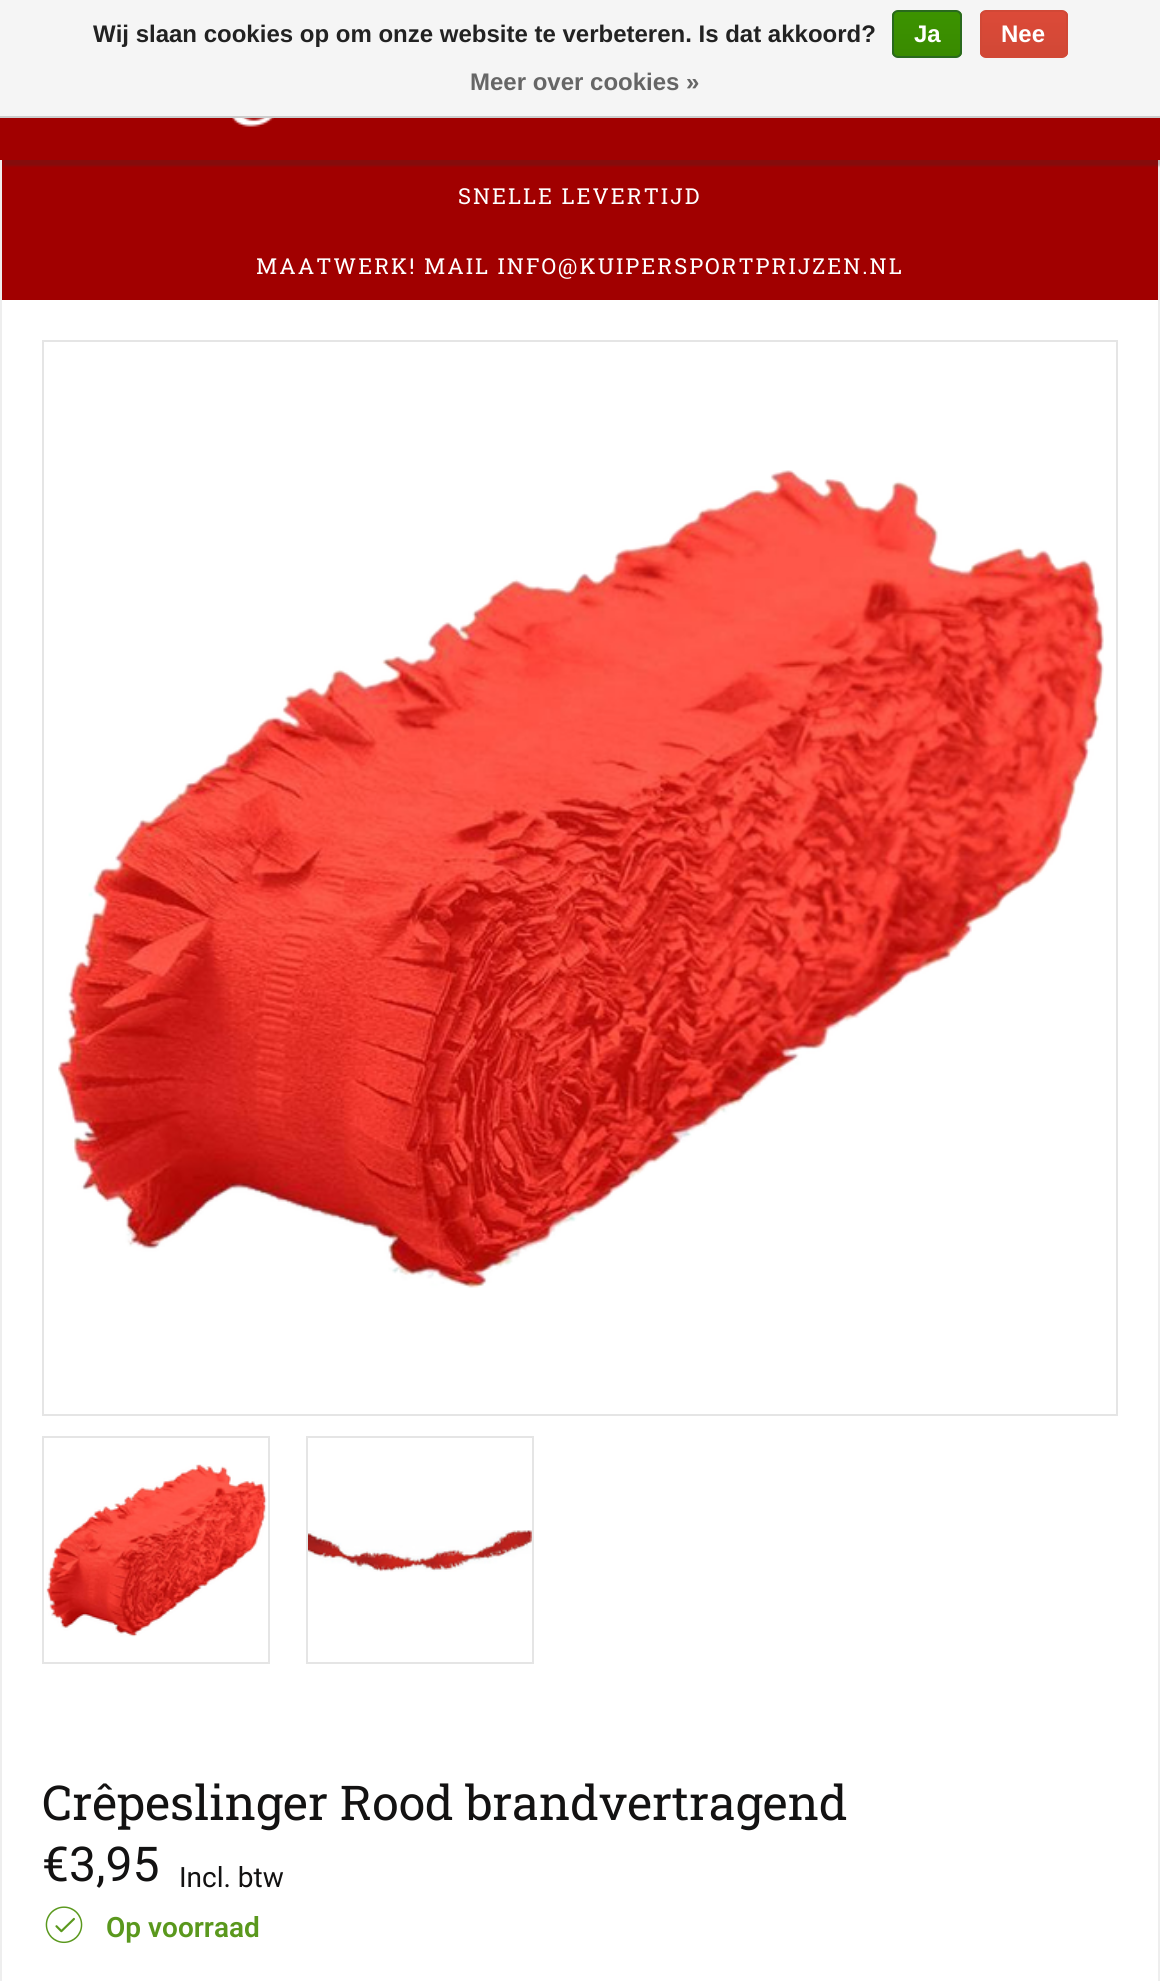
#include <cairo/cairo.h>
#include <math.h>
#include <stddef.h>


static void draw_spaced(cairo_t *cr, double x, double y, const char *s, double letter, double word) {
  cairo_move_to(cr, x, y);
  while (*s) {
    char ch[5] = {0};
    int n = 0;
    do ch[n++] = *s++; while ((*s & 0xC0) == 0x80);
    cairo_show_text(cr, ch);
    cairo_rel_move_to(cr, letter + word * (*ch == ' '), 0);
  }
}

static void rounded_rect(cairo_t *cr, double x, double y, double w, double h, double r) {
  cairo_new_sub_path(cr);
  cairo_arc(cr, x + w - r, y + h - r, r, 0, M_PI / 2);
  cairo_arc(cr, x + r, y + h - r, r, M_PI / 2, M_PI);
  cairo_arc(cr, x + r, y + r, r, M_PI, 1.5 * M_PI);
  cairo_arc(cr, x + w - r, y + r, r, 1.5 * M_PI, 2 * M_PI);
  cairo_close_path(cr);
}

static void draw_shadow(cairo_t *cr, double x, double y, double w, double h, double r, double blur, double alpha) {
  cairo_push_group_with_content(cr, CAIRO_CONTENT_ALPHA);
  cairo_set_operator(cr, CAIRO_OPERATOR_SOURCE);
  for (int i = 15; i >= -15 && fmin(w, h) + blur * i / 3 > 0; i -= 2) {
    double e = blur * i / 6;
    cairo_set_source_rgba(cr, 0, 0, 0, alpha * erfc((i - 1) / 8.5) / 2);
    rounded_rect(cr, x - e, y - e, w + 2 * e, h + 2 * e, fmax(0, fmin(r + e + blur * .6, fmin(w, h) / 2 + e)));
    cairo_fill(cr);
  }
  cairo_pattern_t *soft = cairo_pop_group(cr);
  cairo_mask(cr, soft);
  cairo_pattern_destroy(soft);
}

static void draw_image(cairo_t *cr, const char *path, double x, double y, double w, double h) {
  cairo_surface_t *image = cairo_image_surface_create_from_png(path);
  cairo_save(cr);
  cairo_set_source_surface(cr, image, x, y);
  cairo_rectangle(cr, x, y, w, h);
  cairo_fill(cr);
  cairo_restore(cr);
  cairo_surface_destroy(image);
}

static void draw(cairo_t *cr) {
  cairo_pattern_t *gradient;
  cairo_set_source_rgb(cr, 238 / 255.0, 238 / 255.0, 238 / 255.0);
  cairo_paint(cr);
  cairo_set_source_rgb(cr, 161 / 255.0, 0, 0);
  cairo_rectangle(cr, 2, 160, 1156, 140);
  cairo_fill(cr);
  cairo_set_source_rgb(cr, 50 / 255.0, 50 / 255.0, 50 / 255.0);
  draw_shadow(cr, 4, 2, 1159, 164, 0, 1, 0.25);
  cairo_set_source_rgb(cr, 245 / 255.0, 245 / 255.0, 245 / 255.0);
  cairo_rectangle(cr, 0, 0, 1160, 116);
  cairo_fill(cr);
  cairo_set_source_rgb(cr, 204 / 255.0, 204 / 255.0, 204 / 255.0);
  cairo_rectangle(cr, 0, 116, 1160, 2);
  cairo_fill(cr);
  cairo_save(cr);
  rounded_rect(cr, 892, 10, 70, 48, 6);
  cairo_clip(cr);
  gradient = cairo_pattern_create_linear(927, 12, 927, 56);
  cairo_pattern_add_color_stop_rgba(gradient, 0, 60 / 255.0, 147 / 255.0, 0, 1);
  cairo_pattern_add_color_stop_rgba(gradient, 1, 57 / 255.0, 138 / 255.0, 0, 1);
  cairo_set_source(cr, gradient);
  cairo_pattern_destroy(gradient);
  cairo_rectangle(cr, 892, 12, 70, 44);
  cairo_fill(cr);
  cairo_restore(cr);
  rounded_rect(cr, 893, 11, 68, 46, 5);
  cairo_set_source_rgb(cr, 41 / 255.0, 105 / 255.0, 29 / 255.0);
  cairo_stroke(cr);
  cairo_save(cr);
  rounded_rect(cr, 980, 10, 88, 48, 6);
  cairo_clip(cr);
  gradient = cairo_pattern_create_linear(1024, 12, 1024, 56);
  cairo_pattern_add_color_stop_rgba(gradient, 0, 220 / 255.0, 74 / 255.0, 56 / 255.0, 1);
  cairo_pattern_add_color_stop_rgba(gradient, 1, 209 / 255.0, 72 / 255.0, 54 / 255.0, 1);
  cairo_set_source(cr, gradient);
  cairo_pattern_destroy(gradient);
  cairo_rectangle(cr, 980, 12, 88, 44);
  cairo_fill(cr);
  cairo_restore(cr);
  rounded_rect(cr, 981, 11, 86, 46, 5);
  cairo_set_source_rgb(cr, 209 / 255.0, 72 / 255.0, 54 / 255.0);
  cairo_stroke(cr);
  cairo_set_source_rgb(cr, 161 / 255.0, 0, 0);
  cairo_rectangle(cr, 0, 118, 1160, 42);
  cairo_fill(cr);
  draw_image(cr, "images/1.png", 232, 118, 42, 9);
  cairo_set_source_rgb(cr, 1, 1, 1);
  cairo_rectangle(cr, 2, 300, 1156, 1681);
  cairo_fill(cr);
  cairo_rectangle(cr, 43, 341, 1074, 1074);
  cairo_set_source_rgb(cr, 229 / 255.0, 229 / 255.0, 229 / 255.0);
  cairo_stroke(cr);
  draw_image(cr, "images/2.png", 58, 470, 1046, 818);
  cairo_rectangle(cr, 43, 1437, 226, 226);
  cairo_stroke(cr);
  draw_image(cr, "images/3.png", 46, 1464, 221, 173);
  cairo_rectangle(cr, 307, 1437, 226, 226);
  cairo_stroke(cr);
  draw_image(cr, "images/4.png", 308, 1530, 224, 42);
  draw_image(cr, "images/5.png", 45, 1906, 38, 38);
  cairo_select_font_face(cr, "Liberation Sans", CAIRO_FONT_SLANT_NORMAL, CAIRO_FONT_WEIGHT_BOLD);
  cairo_set_font_size(cr, 24);
  cairo_set_source_rgb(cr, 34 / 255.0, 34 / 255.0, 34 / 255.0);
  cairo_move_to(cr, 93, 42);
  cairo_show_text(cr, "Wij slaan cookies op om onze website te verbeteren. Is dat akkoord?");
  cairo_set_source_rgb(cr, 1, 1, 1);
  cairo_move_to(cr, 914, 42);
  cairo_show_text(cr, "Ja");
  cairo_move_to(cr, 1001, 42);
  cairo_show_text(cr, "Nee");
  cairo_set_source_rgb(cr, 102 / 255.0, 102 / 255.0, 102 / 255.0);
  cairo_move_to(cr, 470, 90);
  cairo_show_text(cr, "Meer over cookies »");
  cairo_select_font_face(cr, "Roboto Slab", CAIRO_FONT_SLANT_NORMAL, CAIRO_FONT_WEIGHT_NORMAL);
  cairo_set_font_size(cr, 22);
  cairo_set_source_rgb(cr, 1, 1, 1);
  draw_spaced(cr, 458, 204, "SNELLE LEVERTIJD", 2, 0);
  draw_spaced(cr, 256, 274, "MAATWERK! MAIL INFO@KUIPERSPORTPRIJZEN.NL", 2, 0);
  cairo_set_font_size(cr, 48);
  cairo_set_source_rgb(cr, 19 / 255.0, 18 / 255.0, 18 / 255.0);
  cairo_move_to(cr, 42, 1820);
  cairo_show_text(cr, "Crêpeslinger Rood brandvertragend");
  cairo_select_font_face(cr, "Roboto", CAIRO_FONT_SLANT_NORMAL, CAIRO_FONT_WEIGHT_NORMAL);
  cairo_move_to(cr, 42, 1881);
  cairo_show_text(cr, "€3,95");
  cairo_set_font_size(cr, 28);
  cairo_move_to(cr, 179, 1887);
  cairo_show_text(cr, "Incl. btw");
  cairo_select_font_face(cr, "Roboto SemiBold", CAIRO_FONT_SLANT_NORMAL, CAIRO_FONT_WEIGHT_NORMAL);
  cairo_set_source_rgb(cr, 90 / 255.0, 152 / 255.0, 29 / 255.0);
  cairo_move_to(cr, 106, 1937);
  cairo_show_text(cr, "Op voorraad");
}

int main(void) {
  cairo_surface_t *surface = cairo_image_surface_create(CAIRO_FORMAT_RGB24, 1160, 1981);
  cairo_t *cr = cairo_create(surface);
  cairo_font_options_t *options = cairo_font_options_create();
  cairo_font_options_set_hint_metrics(options, CAIRO_HINT_METRICS_OFF);
  cairo_font_options_set_hint_style(options, CAIRO_HINT_STYLE_NONE);
  cairo_set_font_options(cr, options);
  cairo_set_miter_limit(cr, 4);
  draw(cr);
  cairo_surface_write_to_png(surface, "out.png");
  cairo_font_options_destroy(options);
  cairo_destroy(cr);
  cairo_surface_destroy(surface);
  return 0;
}
